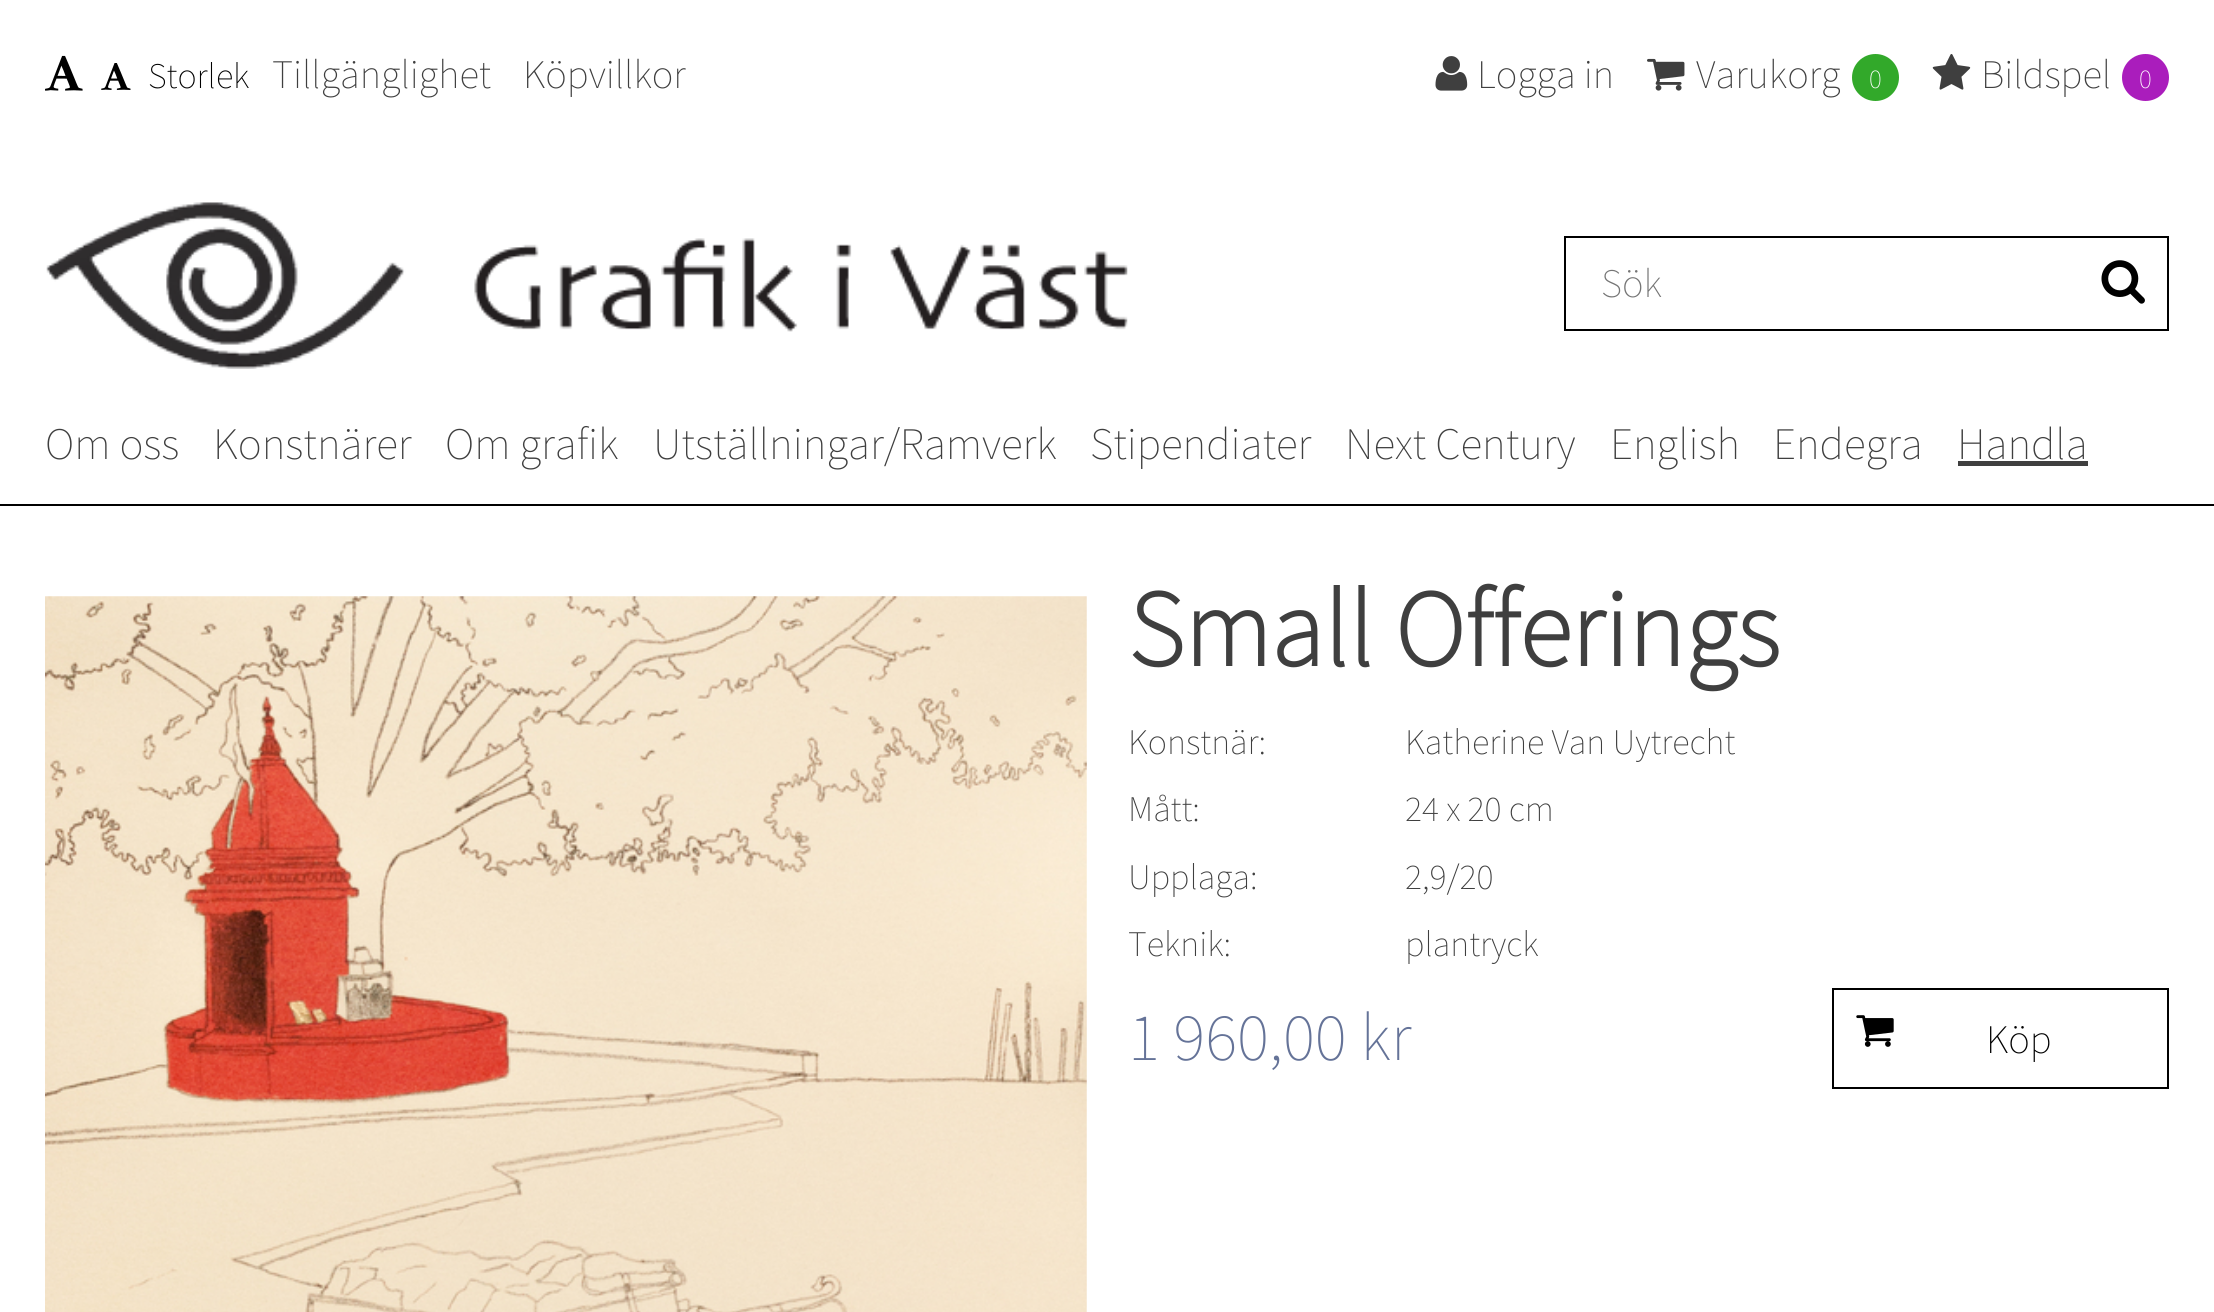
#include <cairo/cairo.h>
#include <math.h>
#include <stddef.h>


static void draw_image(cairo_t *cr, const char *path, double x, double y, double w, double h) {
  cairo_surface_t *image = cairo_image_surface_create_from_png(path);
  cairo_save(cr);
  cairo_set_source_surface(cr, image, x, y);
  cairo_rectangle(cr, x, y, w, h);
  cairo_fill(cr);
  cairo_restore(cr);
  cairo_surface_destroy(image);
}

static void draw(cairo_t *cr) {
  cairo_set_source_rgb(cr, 1, 1, 1);
  cairo_paint(cr);
  draw_image(cr, "images/1.png", 45, 55, 38, 36);
  draw_image(cr, "images/2.png", 101, 63, 30, 27);
  draw_image(cr, "images/3.png", 1435, 56, 33, 35);
  draw_image(cr, "images/4.png", 1647, 58, 38, 33);
  cairo_set_source_rgb(cr, 50 / 255.0, 169 / 255.0, 42 / 255.0);
  cairo_arc(cr, 1875.5, 77.5, 23.5, 0, 2 * M_PI);
  cairo_fill(cr);
  draw_image(cr, "images/5.png", 1932, 54, 39, 36);
  cairo_set_source_rgb(cr, 170 / 255.0, 29 / 255.0, 188 / 255.0);
  cairo_arc(cr, 2145.5, 77.5, 23.5, 0, 2 * M_PI);
  cairo_fill(cr);
  draw_image(cr, "images/6.png", 46, 202, 1082, 167);
  cairo_rectangle(cr, 1565, 237, 603, 93);
  cairo_set_source_rgb(cr, 0, 0, 0);
  cairo_stroke(cr);
  draw_image(cr, "images/7.png", 2101, 260, 44, 44);
  cairo_rectangle(cr, 0, 504, 2214, 2);
  cairo_fill(cr);
  cairo_set_source_rgb(cr, 63 / 255.0, 63 / 255.0, 63 / 255.0);
  cairo_rectangle(cr, 1958, 461, 130, 5);
  cairo_fill(cr);
  draw_image(cr, "images/8.png", 45, 596, 1042, 716);
  cairo_rectangle(cr, 1833, 989, 335, 99);
  cairo_set_source_rgb(cr, 0, 0, 0);
  cairo_stroke(cr);
  draw_image(cr, "images/9.png", 1856, 1015, 38, 32);
  cairo_select_font_face(cr, "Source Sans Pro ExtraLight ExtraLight", CAIRO_FONT_SLANT_NORMAL, CAIRO_FONT_WEIGHT_NORMAL);
  cairo_set_font_size(cr, 36);
  cairo_move_to(cr, 148, 88);
  cairo_show_text(cr, "Storlek");
  cairo_set_font_size(cr, 40.5);
  cairo_set_source_rgb(cr, 63 / 255.0, 63 / 255.0, 63 / 255.0);
  cairo_move_to(cr, 272, 88);
  cairo_show_text(cr, "Tillgänglighet");
  cairo_move_to(cr, 523, 88);
  cairo_show_text(cr, "Köpvillkor");
  cairo_move_to(cr, 1477, 88);
  cairo_show_text(cr, "Logga in");
  cairo_move_to(cr, 1696, 88);
  cairo_show_text(cr, "Varukorg");
  cairo_set_font_size(cr, 27);
  cairo_set_source_rgb(cr, 1, 1, 1);
  cairo_move_to(cr, 1869, 88);
  cairo_show_text(cr, "0");
  cairo_set_font_size(cr, 40.5);
  cairo_set_source_rgb(cr, 63 / 255.0, 63 / 255.0, 63 / 255.0);
  cairo_move_to(cr, 1981, 88);
  cairo_show_text(cr, "Bildspel");
  cairo_set_font_size(cr, 27);
  cairo_set_source_rgb(cr, 1, 1, 1);
  cairo_move_to(cr, 2139, 88);
  cairo_show_text(cr, "0");
  cairo_set_font_size(cr, 40.5);
  cairo_set_source_rgb(cr, 117 / 255.0, 117 / 255.0, 117 / 255.0);
  cairo_move_to(cr, 1601, 297);
  cairo_show_text(cr, "Sök");
  cairo_set_font_size(cr, 45);
  cairo_set_source_rgb(cr, 63 / 255.0, 63 / 255.0, 63 / 255.0);
  cairo_move_to(cr, 45, 459);
  cairo_show_text(cr, "Om oss");
  cairo_move_to(cr, 213, 459);
  cairo_show_text(cr, "Konstnärer");
  cairo_move_to(cr, 445, 459);
  cairo_show_text(cr, "Om grafik");
  cairo_move_to(cr, 653, 459);
  cairo_show_text(cr, "Utställningar/Ramverk");
  cairo_move_to(cr, 1090, 459);
  cairo_show_text(cr, "Stipendiater");
  cairo_move_to(cr, 1345, 459);
  cairo_show_text(cr, "Next Century");
  cairo_move_to(cr, 1610, 459);
  cairo_show_text(cr, "English");
  cairo_move_to(cr, 1773, 459);
  cairo_show_text(cr, "Endegra");
  cairo_move_to(cr, 1957, 459);
  cairo_show_text(cr, "Handla");
  cairo_select_font_face(cr, "Source Sans Pro ExtraLight", CAIRO_FONT_SLANT_NORMAL, CAIRO_FONT_WEIGHT_BOLD);
  cairo_set_font_size(cr, 108);
  cairo_move_to(cr, 1128, 666);
  cairo_show_text(cr, "Small Offerings");
  cairo_select_font_face(cr, "Source Sans Pro ExtraLight ExtraLight", CAIRO_FONT_SLANT_NORMAL, CAIRO_FONT_WEIGHT_NORMAL);
  cairo_set_font_size(cr, 36);
  cairo_move_to(cr, 1128, 754);
  cairo_show_text(cr, "Konstnär:");
  cairo_move_to(cr, 1405, 754);
  cairo_show_text(cr, "Katherine Van Uytrecht");
  cairo_move_to(cr, 1128, 821);
  cairo_show_text(cr, "Mått:");
  cairo_move_to(cr, 1405, 821);
  cairo_show_text(cr, "24 x 20 cm");
  cairo_move_to(cr, 1128, 889);
  cairo_show_text(cr, "Upplaga:");
  cairo_move_to(cr, 1405, 889);
  cairo_show_text(cr, "2,9/20");
  cairo_move_to(cr, 1128, 956);
  cairo_show_text(cr, "Teknik:");
  cairo_move_to(cr, 1405, 956);
  cairo_show_text(cr, "plantryck");
  cairo_set_font_size(cr, 67.5);
  cairo_set_source_rgb(cr, 101 / 255.0, 115 / 255.0, 152 / 255.0);
  cairo_move_to(cr, 1128, 1060);
  cairo_show_text(cr, "1 960,00 kr");
  cairo_set_font_size(cr, 40.5);
  cairo_set_source_rgb(cr, 0, 0, 0);
  cairo_move_to(cr, 1986, 1053);
  cairo_show_text(cr, "Köp");
}

int main(void) {
  cairo_surface_t *surface = cairo_image_surface_create(CAIRO_FORMAT_RGB24, 2214, 1312);
  cairo_t *cr = cairo_create(surface);
  cairo_font_options_t *options = cairo_font_options_create();
  cairo_font_options_set_hint_metrics(options, CAIRO_HINT_METRICS_OFF);
  cairo_font_options_set_hint_style(options, CAIRO_HINT_STYLE_NONE);
  cairo_set_font_options(cr, options);
  cairo_set_miter_limit(cr, 4);
  draw(cr);
  cairo_surface_write_to_png(surface, "out.png");
  cairo_font_options_destroy(options);
  cairo_destroy(cr);
  cairo_surface_destroy(surface);
  return 0;
}
